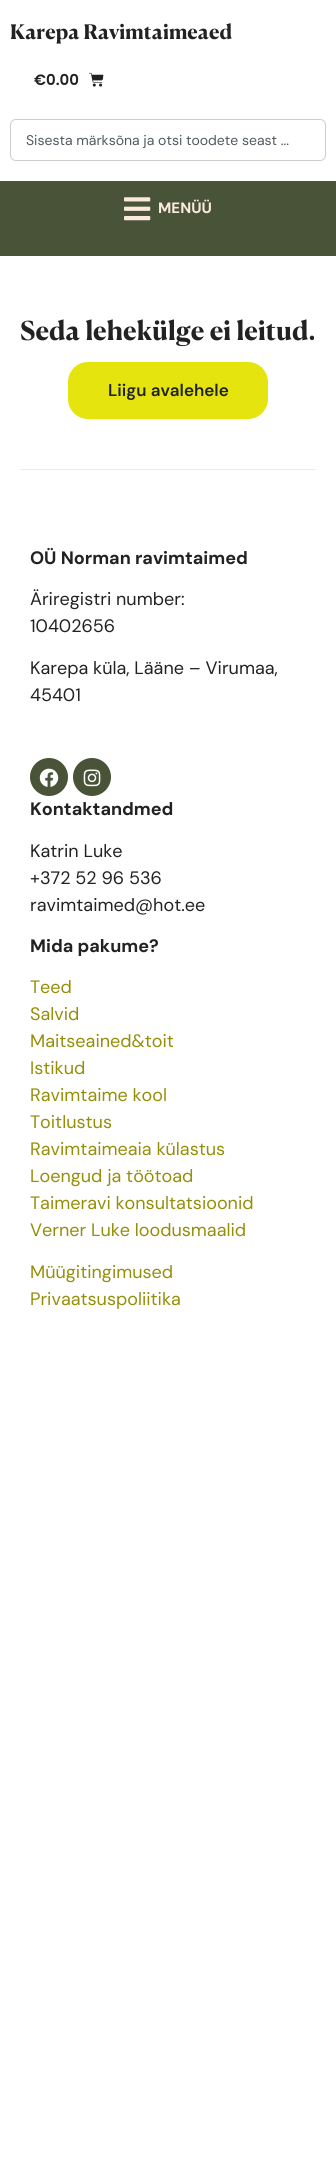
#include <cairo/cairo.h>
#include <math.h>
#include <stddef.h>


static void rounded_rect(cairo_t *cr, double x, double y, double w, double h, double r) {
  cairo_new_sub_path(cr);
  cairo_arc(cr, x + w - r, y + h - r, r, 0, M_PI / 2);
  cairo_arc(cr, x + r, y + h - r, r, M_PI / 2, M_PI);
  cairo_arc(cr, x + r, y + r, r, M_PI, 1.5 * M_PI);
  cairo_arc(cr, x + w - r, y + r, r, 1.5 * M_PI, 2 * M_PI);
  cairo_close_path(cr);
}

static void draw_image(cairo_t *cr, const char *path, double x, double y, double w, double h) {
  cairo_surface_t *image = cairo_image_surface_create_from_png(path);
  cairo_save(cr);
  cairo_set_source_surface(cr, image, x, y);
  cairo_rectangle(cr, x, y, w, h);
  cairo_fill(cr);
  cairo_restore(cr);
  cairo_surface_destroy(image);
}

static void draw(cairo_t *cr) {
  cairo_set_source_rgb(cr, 1, 1, 1);
  cairo_paint(cr);
  draw_image(cr, "images/1.png", 89, 72, 15, 15);
  rounded_rect(cr, 10.5, 119.5, 315, 41, 5.5);
  cairo_set_source_rgb(cr, 205 / 255.0, 205 / 255.0, 205 / 255.0);
  cairo_set_line_width(cr, 1);
  cairo_stroke(cr);
  cairo_set_source_rgb(cr, 72 / 255.0, 83 / 255.0, 55 / 255.0);
  cairo_rectangle(cr, 0, 181, 336, 75);
  cairo_fill(cr);
  draw_image(cr, "images/2.png", 124, 197, 27, 24);
  cairo_set_source_rgb(cr, 235 / 255.0, 234 / 255.0, 228 / 255.0);
  cairo_rectangle(cr, 20, 469, 296, 1);
  cairo_fill(cr);
  cairo_set_source_rgb(cr, 229 / 255.0, 228 / 255.0, 15 / 255.0);
  rounded_rect(cr, 68, 362, 200, 57, 20);
  cairo_fill(cr);
  cairo_set_source_rgb(cr, 72 / 255.0, 83 / 255.0, 55 / 255.0);
  cairo_arc(cr, 49, 777, 19, 0, 2 * M_PI);
  cairo_fill(cr);
  draw_image(cr, "images/3.png", 39, 768, 20, 19);
  cairo_arc(cr, 92, 777, 19, 0, 2 * M_PI);
  cairo_fill(cr);
  draw_image(cr, "images/4.png", 83, 769, 18, 18);
  cairo_select_font_face(cr, "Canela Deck", CAIRO_FONT_SLANT_NORMAL, CAIRO_FONT_WEIGHT_BOLD);
  cairo_set_font_size(cr, 20);
  cairo_set_source_rgb(cr, 34 / 255.0, 34 / 255.0, 34 / 255.0);
  cairo_move_to(cr, 10, 39);
  cairo_show_text(cr, "Karepa Ravimtaimeaed");
  cairo_select_font_face(cr, "Poppins SemiBold", CAIRO_FONT_SLANT_NORMAL, CAIRO_FONT_WEIGHT_NORMAL);
  cairo_set_font_size(cr, 15);
  cairo_move_to(cr, 34, 85);
  cairo_show_text(cr, "€0.00");
  cairo_select_font_face(cr, "DM Sans", CAIRO_FONT_SLANT_NORMAL, CAIRO_FONT_WEIGHT_NORMAL);
  cairo_set_font_size(cr, 14);
  cairo_set_source_rgb(cr, 81 / 255.0, 89 / 255.0, 98 / 255.0);
  cairo_move_to(cr, 26, 145);
  cairo_show_text(cr, "Sisesta märksõna ja otsi toodete seast ...");
  cairo_select_font_face(cr, "DM Sans ExtraBold", CAIRO_FONT_SLANT_NORMAL, CAIRO_FONT_WEIGHT_NORMAL);
  cairo_set_font_size(cr, 15);
  cairo_set_source_rgb(cr, 249 / 255.0, 234 / 255.0, 221 / 255.0);
  cairo_move_to(cr, 158, 213);
  cairo_show_text(cr, "MENÜÜ");
  cairo_select_font_face(cr, "Canela Deck", CAIRO_FONT_SLANT_NORMAL, CAIRO_FONT_WEIGHT_BOLD);
  cairo_set_font_size(cr, 26);
  cairo_set_source_rgb(cr, 34 / 255.0, 34 / 255.0, 34 / 255.0);
  cairo_move_to(cr, 20, 340);
  cairo_show_text(cr, "Seda lehekülge ei leitud.");
  cairo_select_font_face(cr, "DM Sans SemiBold", CAIRO_FONT_SLANT_NORMAL, CAIRO_FONT_WEIGHT_NORMAL);
  cairo_set_font_size(cr, 17);
  cairo_move_to(cr, 108, 396);
  cairo_show_text(cr, "Liigu avalehele");
  cairo_select_font_face(cr, "DM Sans", CAIRO_FONT_SLANT_NORMAL, CAIRO_FONT_WEIGHT_BOLD);
  cairo_set_font_size(cr, 18);
  cairo_move_to(cr, 30, 564);
  cairo_show_text(cr, "OÜ Norman ravimtaimed");
  cairo_select_font_face(cr, "DM Sans", CAIRO_FONT_SLANT_NORMAL, CAIRO_FONT_WEIGHT_NORMAL);
  cairo_move_to(cr, 30, 605);
  cairo_show_text(cr, "Äriregistri number:");
  cairo_move_to(cr, 30, 632);
  cairo_show_text(cr, "10402656");
  cairo_move_to(cr, 30, 674);
  cairo_show_text(cr, "Karepa küla, Lääne – Virumaa,");
  cairo_move_to(cr, 30, 701);
  cairo_show_text(cr, "45401");
  cairo_select_font_face(cr, "DM Sans", CAIRO_FONT_SLANT_NORMAL, CAIRO_FONT_WEIGHT_BOLD);
  cairo_move_to(cr, 30, 815);
  cairo_show_text(cr, "Kontaktandmed");
  cairo_select_font_face(cr, "DM Sans", CAIRO_FONT_SLANT_NORMAL, CAIRO_FONT_WEIGHT_NORMAL);
  cairo_move_to(cr, 30, 857);
  cairo_show_text(cr, "Katrin Luke");
  cairo_move_to(cr, 30, 884);
  cairo_show_text(cr, "+372 52 96 536");
  cairo_move_to(cr, 30, 911);
  cairo_show_text(cr, "ravimtaimed@hot.ee");
  cairo_select_font_face(cr, "DM Sans", CAIRO_FONT_SLANT_NORMAL, CAIRO_FONT_WEIGHT_BOLD);
  cairo_move_to(cr, 30, 952);
  cairo_show_text(cr, "Mida pakume?");
  cairo_select_font_face(cr, "DM Sans", CAIRO_FONT_SLANT_NORMAL, CAIRO_FONT_WEIGHT_NORMAL);
  cairo_set_source_rgb(cr, 149 / 255.0, 142 / 255.0, 9 / 255.0);
  cairo_move_to(cr, 30, 993);
  cairo_show_text(cr, "Teed");
  cairo_move_to(cr, 30, 1020);
  cairo_show_text(cr, "Salvid");
  cairo_move_to(cr, 30, 1047);
  cairo_show_text(cr, "Maitseained&toit");
  cairo_move_to(cr, 30, 1074);
  cairo_show_text(cr, "Istikud");
  cairo_move_to(cr, 30, 1101);
  cairo_show_text(cr, "Ravimtaime kool");
  cairo_move_to(cr, 30, 1128);
  cairo_show_text(cr, "Toitlustus");
  cairo_move_to(cr, 30, 1155);
  cairo_show_text(cr, "Ravimtaimeaia külastus");
  cairo_move_to(cr, 30, 1182);
  cairo_show_text(cr, "Loengud ja töötoad");
  cairo_move_to(cr, 30, 1209);
  cairo_show_text(cr, "Taimeravi konsultatsioonid");
  cairo_move_to(cr, 30, 1236);
  cairo_show_text(cr, "Verner Luke loodusmaalid");
  cairo_move_to(cr, 30, 1278);
  cairo_show_text(cr, "Müügitingimused");
  cairo_move_to(cr, 30, 1305);
  cairo_show_text(cr, "Privaatsuspoliitika");
}

int main(void) {
  cairo_surface_t *surface = cairo_image_surface_create(CAIRO_FORMAT_RGB24, 336, 2157);
  cairo_t *cr = cairo_create(surface);
  cairo_font_options_t *options = cairo_font_options_create();
  cairo_font_options_set_hint_metrics(options, CAIRO_HINT_METRICS_OFF);
  cairo_font_options_set_hint_style(options, CAIRO_HINT_STYLE_NONE);
  cairo_set_font_options(cr, options);
  cairo_set_miter_limit(cr, 4);
  draw(cr);
  cairo_surface_write_to_png(surface, "out.png");
  cairo_font_options_destroy(options);
  cairo_destroy(cr);
  cairo_surface_destroy(surface);
  return 0;
}
